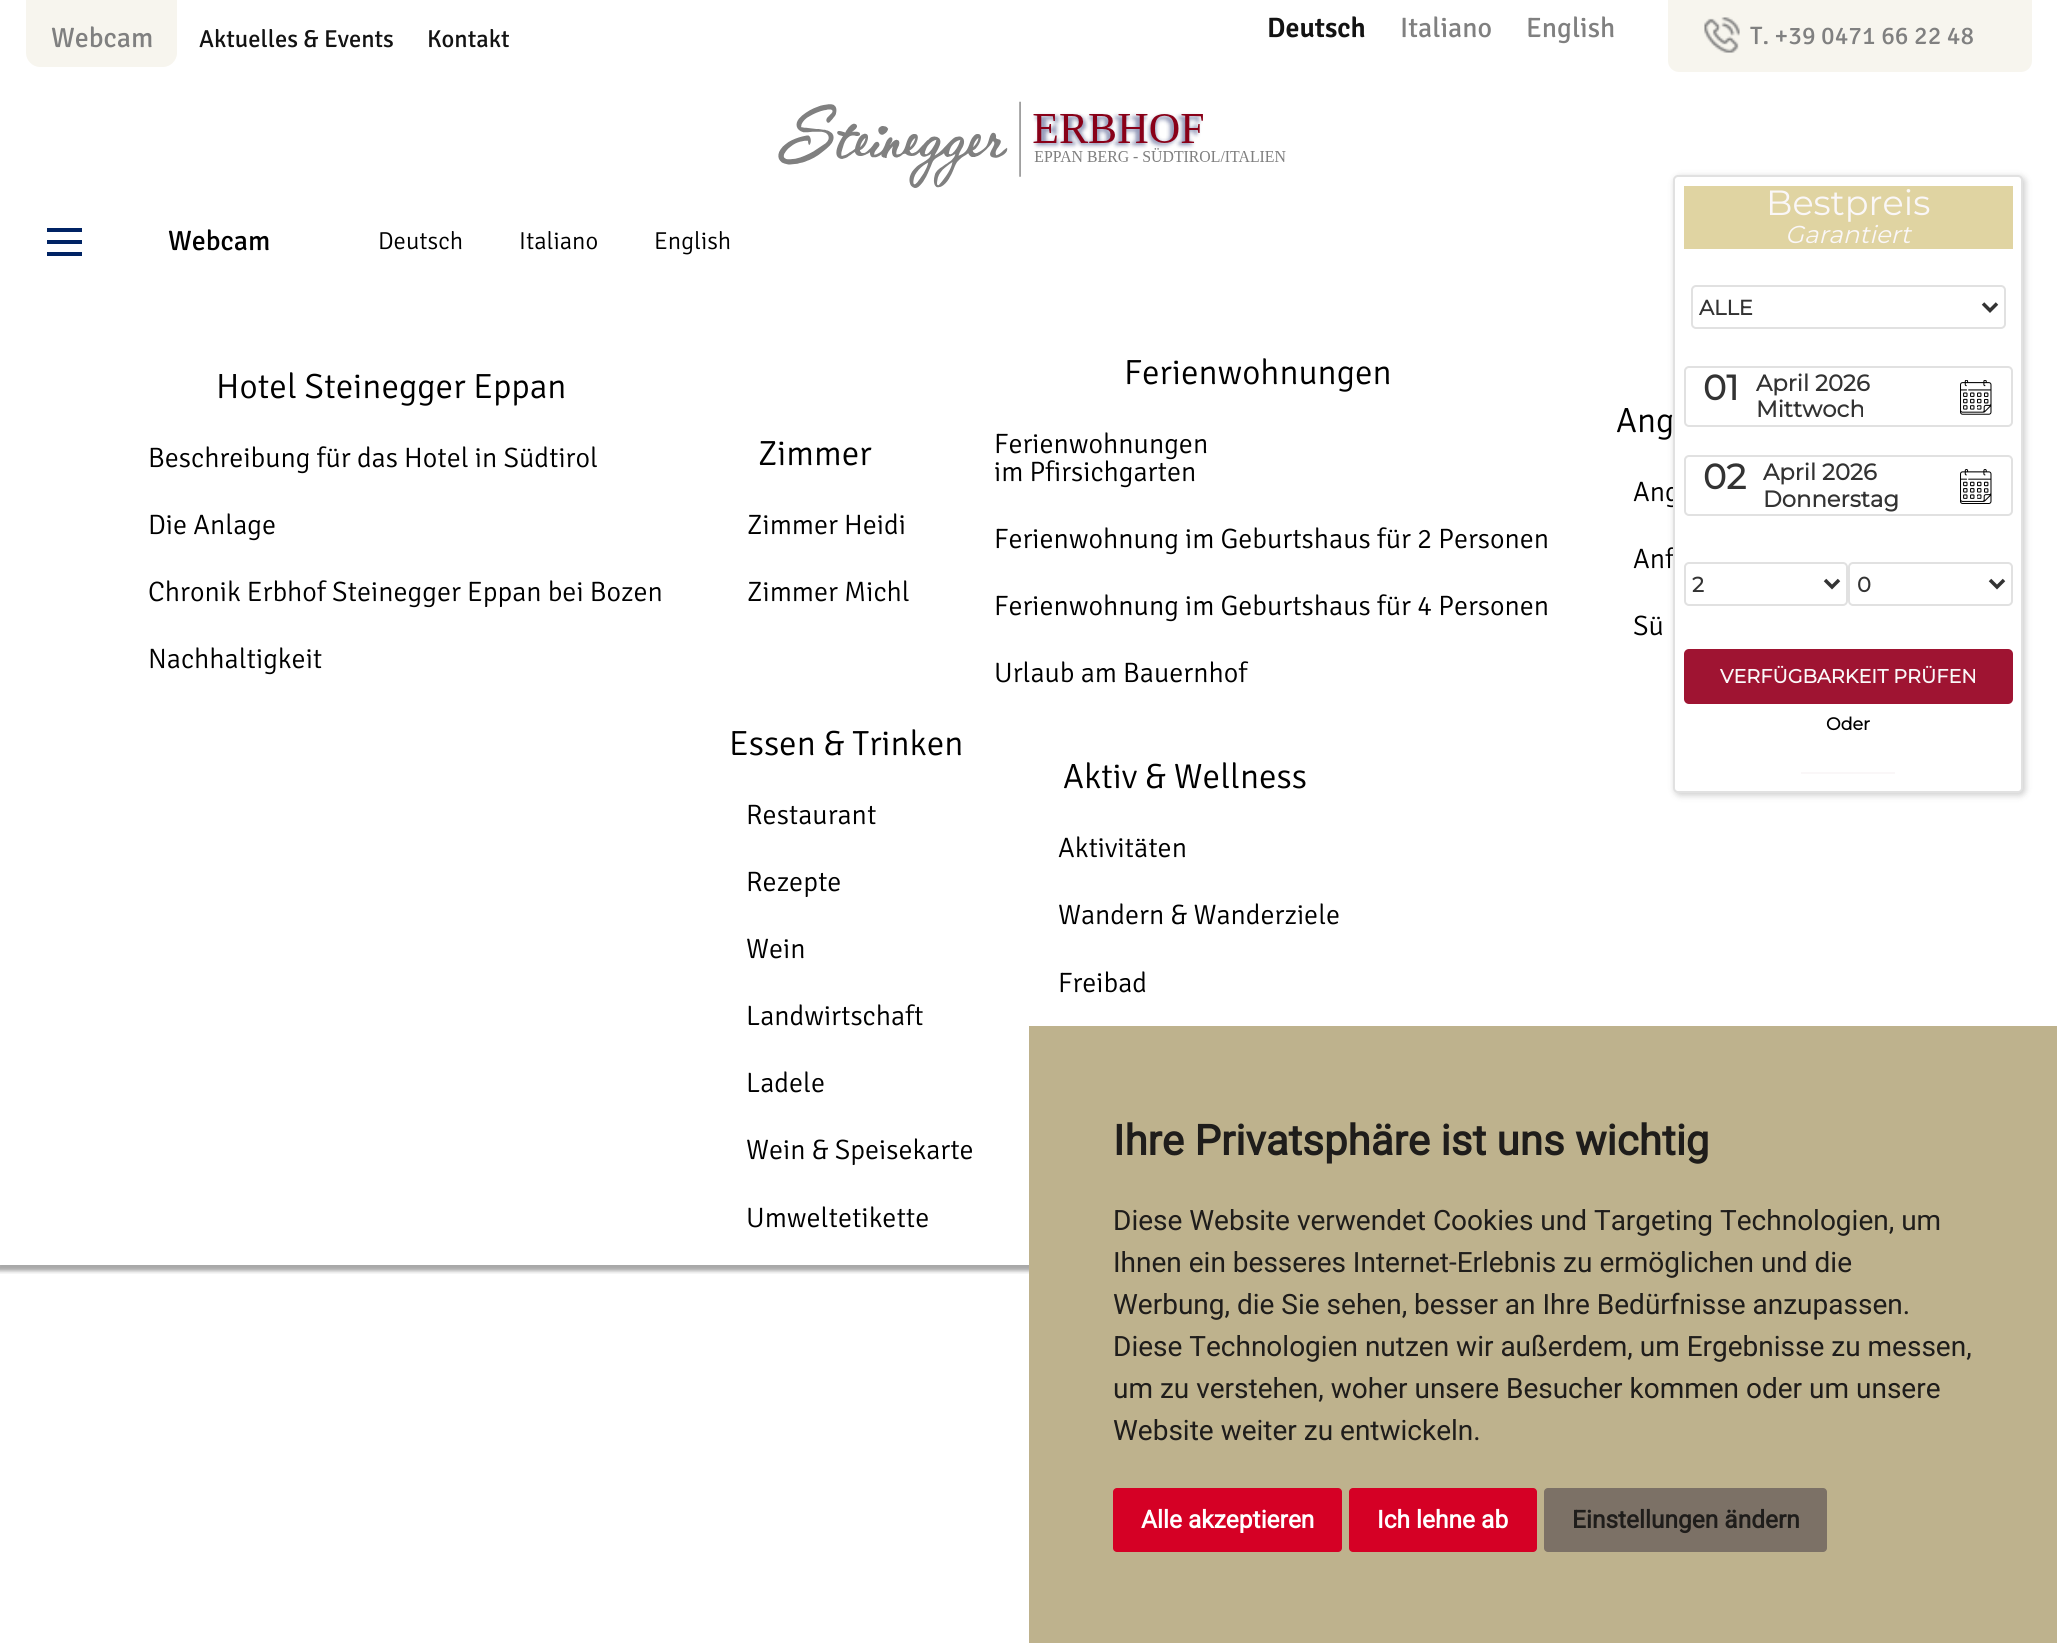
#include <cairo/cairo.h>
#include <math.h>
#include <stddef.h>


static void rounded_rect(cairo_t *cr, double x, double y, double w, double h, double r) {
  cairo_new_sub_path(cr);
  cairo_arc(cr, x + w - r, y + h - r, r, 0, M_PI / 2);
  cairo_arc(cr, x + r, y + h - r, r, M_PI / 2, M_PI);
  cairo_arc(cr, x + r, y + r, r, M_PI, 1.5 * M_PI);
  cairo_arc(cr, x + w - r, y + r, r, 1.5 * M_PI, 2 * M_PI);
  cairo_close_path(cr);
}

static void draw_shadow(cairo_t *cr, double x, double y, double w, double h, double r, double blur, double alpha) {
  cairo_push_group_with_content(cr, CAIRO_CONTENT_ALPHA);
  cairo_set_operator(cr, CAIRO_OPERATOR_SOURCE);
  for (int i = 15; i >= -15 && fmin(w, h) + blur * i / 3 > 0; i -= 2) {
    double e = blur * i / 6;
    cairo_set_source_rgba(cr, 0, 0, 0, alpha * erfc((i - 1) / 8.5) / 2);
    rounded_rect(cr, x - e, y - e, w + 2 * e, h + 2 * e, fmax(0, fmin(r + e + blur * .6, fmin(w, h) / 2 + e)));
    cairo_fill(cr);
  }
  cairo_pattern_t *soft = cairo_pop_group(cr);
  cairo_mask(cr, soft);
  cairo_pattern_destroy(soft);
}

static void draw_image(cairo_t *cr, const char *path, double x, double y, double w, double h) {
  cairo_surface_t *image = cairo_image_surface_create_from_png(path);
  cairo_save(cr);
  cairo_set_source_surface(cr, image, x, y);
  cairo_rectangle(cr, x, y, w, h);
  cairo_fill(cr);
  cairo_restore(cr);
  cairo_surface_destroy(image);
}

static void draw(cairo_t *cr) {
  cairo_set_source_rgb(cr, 1, 1, 1);
  cairo_paint(cr);
  cairo_save(cr);
  cairo_rectangle(cr, 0, 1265, 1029, 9);
  cairo_clip(cr);
  cairo_set_source_rgb(cr, 80 / 255.0, 80 / 255.0, 80 / 255.0);
  draw_shadow(cr, -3, -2, 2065, 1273, 0, 2, 0.5);
  cairo_restore(cr);
  cairo_set_source_rgb(cr, 247 / 255.0, 245 / 255.0, 238 / 255.0);
  cairo_new_path(cr);
  cairo_move_to(cr, 26, 0);
  cairo_line_to(cr, 177, 0);
  cairo_line_to(cr, 177, 53);
  cairo_curve_to(cr, 177, 60.5, 170.5, 67, 163, 67);
  cairo_line_to(cr, 40, 67);
  cairo_curve_to(cr, 32.5, 67, 26, 60.5, 26, 53);
  cairo_close_path(cr);
  cairo_fill(cr);
  cairo_new_path(cr);
  cairo_move_to(cr, 1668, 0);
  cairo_line_to(cr, 2032, 0);
  cairo_line_to(cr, 2032, 61);
  cairo_curve_to(cr, 2032, 67, 2027, 72, 2021, 72);
  cairo_line_to(cr, 1679, 72);
  cairo_curve_to(cr, 1673, 72, 1668, 67, 1668, 61);
  cairo_close_path(cr);
  cairo_fill(cr);
  draw_image(cr, "images/1.png", 1704, 17, 36, 36);
  draw_image(cr, "images/2.png", 778, 101, 508, 87);
  cairo_set_source_rgb(cr, 0, 35 / 255.0, 100 / 255.0);
  cairo_rectangle(cr, 47, 252, 35, 4);
  cairo_fill(cr);
  cairo_rectangle(cr, 47, 240, 35, 4);
  cairo_fill(cr);
  cairo_rectangle(cr, 47, 228, 35, 4);
  cairo_fill(cr);
  cairo_set_source_rgb(cr, 0, 0, 0);
  draw_shadow(cr, 1675, 177, 350, 618, 5, 3.5, 0.21);
  cairo_set_source_rgb(cr, 190 / 255.0, 178 / 255.0, 141 / 255.0);
  cairo_rectangle(cr, 1029, 1026, 1028, 617);
  cairo_fill(cr);
  cairo_set_source_rgb(cr, 213 / 255.0, 0, 37 / 255.0);
  rounded_rect(cr, 1113, 1488, 229, 64, 4);
  cairo_fill(cr);
  rounded_rect(cr, 1349, 1488, 188, 64, 4);
  cairo_fill(cr);
  cairo_set_source_rgb(cr, 124 / 255.0, 113 / 255.0, 102 / 255.0);
  rounded_rect(cr, 1544, 1488, 283, 64, 4);
  cairo_fill(cr);
  cairo_select_font_face(cr, "Signika", CAIRO_FONT_SLANT_NORMAL, CAIRO_FONT_WEIGHT_NORMAL);
  cairo_set_font_size(cr, 28);
  cairo_set_source_rgb(cr, 128 / 255.0, 128 / 255.0, 128 / 255.0);
  cairo_move_to(cr, 51, 47);
  cairo_show_text(cr, "Webcam");
  cairo_set_font_size(cr, 24.5);
  cairo_set_source_rgb(cr, 19 / 255.0, 19 / 255.0, 19 / 255.0);
  cairo_move_to(cr, 199, 47);
  cairo_show_text(cr, "Aktuelles & Events");
  cairo_move_to(cr, 427, 47);
  cairo_show_text(cr, "Kontakt");
  cairo_select_font_face(cr, "Signika SemiBold", CAIRO_FONT_SLANT_NORMAL, CAIRO_FONT_WEIGHT_NORMAL);
  cairo_set_font_size(cr, 28);
  cairo_move_to(cr, 1267, 37);
  cairo_show_text(cr, "Deutsch");
  cairo_select_font_face(cr, "Signika", CAIRO_FONT_SLANT_NORMAL, CAIRO_FONT_WEIGHT_NORMAL);
  cairo_set_source_rgb(cr, 128 / 255.0, 128 / 255.0, 128 / 255.0);
  cairo_move_to(cr, 1400, 37);
  cairo_show_text(cr, "Italiano");
  cairo_move_to(cr, 1526, 37);
  cairo_show_text(cr, "English");
  cairo_set_font_size(cr, 25.25);
  cairo_move_to(cr, 1750, 44);
  cairo_show_text(cr, "T. +39 0471 66 22 48");
  cairo_set_font_size(cr, 28);
  cairo_set_source_rgb(cr, 0, 0, 0);
  cairo_move_to(cr, 168, 250);
  cairo_show_text(cr, "Webcam");
  cairo_select_font_face(cr, "Signika Light", CAIRO_FONT_SLANT_NORMAL, CAIRO_FONT_WEIGHT_NORMAL);
  cairo_set_font_size(cr, 24.5);
  cairo_move_to(cr, 378, 249);
  cairo_show_text(cr, "Deutsch");
  cairo_move_to(cr, 519, 249);
  cairo_show_text(cr, "Italiano");
  cairo_move_to(cr, 654, 249);
  cairo_show_text(cr, "English");
  cairo_set_font_size(cr, 35);
  cairo_move_to(cr, 216, 398);
  cairo_show_text(cr, "Hotel Steinegger Eppan");
  cairo_set_font_size(cr, 28);
  cairo_move_to(cr, 148, 467);
  cairo_show_text(cr, "Beschreibung für das Hotel in Südtirol");
  cairo_move_to(cr, 148, 534);
  cairo_show_text(cr, "Die Anlage");
  cairo_move_to(cr, 148, 601);
  cairo_show_text(cr, "Chronik Erbhof Steinegger Eppan bei Bozen");
  cairo_move_to(cr, 148, 668);
  cairo_show_text(cr, "Nachhaltigkeit");
  cairo_set_font_size(cr, 35);
  cairo_move_to(cr, 758, 465);
  cairo_show_text(cr, "Zimmer");
  cairo_set_font_size(cr, 28);
  cairo_move_to(cr, 747, 534);
  cairo_show_text(cr, "Zimmer Heidi");
  cairo_move_to(cr, 747, 601);
  cairo_show_text(cr, "Zimmer Michl");
  cairo_set_font_size(cr, 35);
  cairo_move_to(cr, 1124, 384);
  cairo_show_text(cr, "Ferienwohnungen");
  cairo_set_font_size(cr, 28);
  cairo_move_to(cr, 994, 453);
  cairo_show_text(cr, "Ferienwohnungen");
  cairo_move_to(cr, 994, 481);
  cairo_show_text(cr, "im Pfirsichgarten");
  cairo_move_to(cr, 994, 548);
  cairo_show_text(cr, "Ferienwohnung im Geburtshaus für 2 Personen");
  cairo_move_to(cr, 994, 615);
  cairo_show_text(cr, "Ferienwohnung im Geburtshaus für 4 Personen");
  cairo_move_to(cr, 994, 682);
  cairo_show_text(cr, "Urlaub am Bauernhof");
  cairo_set_font_size(cr, 35);
  cairo_move_to(cr, 1616, 432);
  cairo_show_text(cr, "Ang");
  cairo_set_font_size(cr, 28);
  cairo_move_to(cr, 1633, 501);
  cairo_show_text(cr, "Ang");
  cairo_move_to(cr, 1633, 568);
  cairo_show_text(cr, "Anf");
  cairo_move_to(cr, 1633, 635);
  cairo_show_text(cr, "Sü");
  cairo_set_font_size(cr, 35);
  cairo_move_to(cr, 729, 755);
  cairo_show_text(cr, "Essen & Trinken");
  cairo_set_font_size(cr, 28);
  cairo_move_to(cr, 746, 824);
  cairo_show_text(cr, "Restaurant");
  cairo_move_to(cr, 746, 891);
  cairo_show_text(cr, "Rezepte");
  cairo_move_to(cr, 746, 958);
  cairo_show_text(cr, "Wein");
  cairo_move_to(cr, 746, 1025);
  cairo_show_text(cr, "Landwirtschaft");
  cairo_move_to(cr, 746, 1092);
  cairo_show_text(cr, "Ladele");
  cairo_move_to(cr, 746, 1159);
  cairo_show_text(cr, "Wein & Speisekarte");
  cairo_move_to(cr, 746, 1227);
  cairo_show_text(cr, "Umweltetikette");
  cairo_set_font_size(cr, 35);
  cairo_move_to(cr, 1063, 788);
  cairo_show_text(cr, "Aktiv & Wellness");
  cairo_set_font_size(cr, 28);
  cairo_move_to(cr, 1058, 857);
  cairo_show_text(cr, "Aktivitäten");
  cairo_move_to(cr, 1058, 924);
  cairo_show_text(cr, "Wandern & Wanderziele");
  cairo_move_to(cr, 1058, 992);
  cairo_show_text(cr, "Freibad");
  cairo_set_source_rgb(cr, 1, 1, 1);
  rounded_rect(cr, 1674, 176, 348, 616, 4);
  cairo_fill_preserve(cr);
  cairo_set_source_rgb(cr, 225 / 255.0, 225 / 255.0, 225 / 255.0);
  cairo_stroke(cr);
  cairo_set_source_rgb(cr, 224 / 255.0, 212 / 255.0, 162 / 255.0);
  cairo_rectangle(cr, 1684, 186, 329, 63);
  cairo_fill(cr);
  cairo_select_font_face(cr, "Montserrat Thin", CAIRO_FONT_SLANT_NORMAL, CAIRO_FONT_WEIGHT_NORMAL);
  cairo_set_font_size(cr, 35);
  cairo_set_source_rgb(cr, 250 / 255.0, 247 / 255.0, 248 / 255.0);
  cairo_move_to(cr, 1766, 215);
  cairo_show_text(cr, "Bestpreis");
  cairo_select_font_face(cr, "Montserrat Thin", CAIRO_FONT_SLANT_ITALIC, CAIRO_FONT_WEIGHT_NORMAL);
  cairo_set_font_size(cr, 24.5);
  cairo_move_to(cr, 1785, 243);
  cairo_show_text(cr, "Garantiert");
  rounded_rect(cr, 1692, 286, 313, 42, 4);
  cairo_set_source_rgb(cr, 225 / 255.0, 225 / 255.0, 225 / 255.0);
  cairo_stroke(cr);
  cairo_new_path(cr);
  cairo_move_to(cr, 1983, 303.5);
  cairo_line_to(cr, 1990, 310.5);
  cairo_line_to(cr, 1997, 303.5);
  cairo_set_source_rgb(cr, 51 / 255.0, 51 / 255.0, 51 / 255.0);
  cairo_set_line_width(cr, 3.5);
  cairo_stroke(cr);
  cairo_select_font_face(cr, "Montserrat", CAIRO_FONT_SLANT_NORMAL, CAIRO_FONT_WEIGHT_BOLD);
  cairo_set_font_size(cr, 21);
  cairo_move_to(cr, 1699, 315);
  cairo_show_text(cr, "ALLE");
  rounded_rect(cr, 1685, 367, 327, 59, 4);
  cairo_set_source_rgb(cr, 225 / 255.0, 225 / 255.0, 225 / 255.0);
  cairo_set_line_width(cr, 2);
  cairo_stroke(cr);
  cairo_set_font_size(cr, 35);
  cairo_set_source_rgb(cr, 51 / 255.0, 51 / 255.0, 51 / 255.0);
  cairo_move_to(cr, 1703, 400);
  cairo_show_text(cr, "01");
  cairo_set_font_size(cr, 22.75);
  cairo_move_to(cr, 1756, 391);
  cairo_show_text(cr, "April 2026");
  cairo_move_to(cr, 1756, 417);
  cairo_show_text(cr, "Mittwoch");
  draw_image(cr, "images/3.png", 1960, 380, 32, 35);
  rounded_rect(cr, 1685, 456, 327, 59, 4);
  cairo_set_source_rgb(cr, 225 / 255.0, 225 / 255.0, 225 / 255.0);
  cairo_stroke(cr);
  cairo_set_font_size(cr, 35);
  cairo_set_source_rgb(cr, 51 / 255.0, 51 / 255.0, 51 / 255.0);
  cairo_move_to(cr, 1703, 489);
  cairo_show_text(cr, "02");
  cairo_set_font_size(cr, 22.75);
  cairo_move_to(cr, 1763, 480);
  cairo_show_text(cr, "April 2026");
  cairo_move_to(cr, 1763, 507);
  cairo_show_text(cr, "Donnerstag");
  draw_image(cr, "images/4.png", 1960, 469, 32, 35);
  rounded_rect(cr, 1685, 563, 162, 42, 4);
  cairo_set_source_rgb(cr, 225 / 255.0, 225 / 255.0, 225 / 255.0);
  cairo_stroke(cr);
  cairo_new_path(cr);
  cairo_move_to(cr, 1825, 580);
  cairo_line_to(cr, 1832, 587);
  cairo_line_to(cr, 1839, 580);
  cairo_set_source_rgb(cr, 51 / 255.0, 51 / 255.0, 51 / 255.0);
  cairo_set_line_width(cr, 3.5);
  cairo_stroke(cr);
  cairo_set_font_size(cr, 21);
  cairo_move_to(cr, 1692, 592);
  cairo_show_text(cr, "2");
  rounded_rect(cr, 1849, 563, 163, 42, 4);
  cairo_set_source_rgb(cr, 225 / 255.0, 225 / 255.0, 225 / 255.0);
  cairo_set_line_width(cr, 2);
  cairo_stroke(cr);
  cairo_new_path(cr);
  cairo_move_to(cr, 1990, 580);
  cairo_line_to(cr, 1997, 587);
  cairo_line_to(cr, 2004, 580);
  cairo_set_source_rgb(cr, 51 / 255.0, 51 / 255.0, 51 / 255.0);
  cairo_set_line_width(cr, 3.5);
  cairo_stroke(cr);
  cairo_move_to(cr, 1857, 592);
  cairo_show_text(cr, "0");
  cairo_set_source_rgb(cr, 159 / 255.0, 20 / 255.0, 50 / 255.0);
  rounded_rect(cr, 1684, 649, 329, 55, 5);
  cairo_fill(cr);
  cairo_set_font_size(cr, 19.25);
  cairo_set_source_rgb(cr, 250 / 255.0, 247 / 255.0, 248 / 255.0);
  cairo_move_to(cr, 1720, 683);
  cairo_show_text(cr, "VERFÜGBARKEIT PRÜFEN");
  cairo_set_font_size(cr, 17.5);
  cairo_set_source_rgb(cr, 0, 0, 0);
  cairo_move_to(cr, 1826, 730);
  cairo_show_text(cr, "Oder");
  cairo_set_source_rgb(cr, 250 / 255.0, 247 / 255.0, 248 / 255.0);
  cairo_rectangle(cr, 1801, 772, 94, 2);
  cairo_fill(cr);
  cairo_select_font_face(cr, "Roboto", CAIRO_FONT_SLANT_NORMAL, CAIRO_FONT_WEIGHT_BOLD);
  cairo_set_font_size(cr, 42);
  cairo_set_source_rgb(cr, 31 / 255.0, 29 / 255.0, 27 / 255.0);
  cairo_move_to(cr, 1113, 1155);
  cairo_show_text(cr, "Ihre Privatsphäre ist uns wichtig");
  cairo_select_font_face(cr, "Roboto", CAIRO_FONT_SLANT_NORMAL, CAIRO_FONT_WEIGHT_NORMAL);
  cairo_set_font_size(cr, 28);
  cairo_move_to(cr, 1113, 1230);
  cairo_show_text(cr, "Diese Website verwendet Cookies und Targeting Technologien, um");
  cairo_move_to(cr, 1113, 1272);
  cairo_show_text(cr, "Ihnen ein besseres Internet-Erlebnis zu ermöglichen und die");
  cairo_move_to(cr, 1113, 1314);
  cairo_show_text(cr, "Werbung, die Sie sehen, besser an Ihre Bedürfnisse anzupassen.");
  cairo_move_to(cr, 1113, 1356);
  cairo_show_text(cr, "Diese Technologien nutzen wir außerdem, um Ergebnisse zu messen,");
  cairo_move_to(cr, 1113, 1398);
  cairo_show_text(cr, "um zu verstehen, woher unsere Besucher kommen oder um unsere");
  cairo_move_to(cr, 1113, 1440);
  cairo_show_text(cr, "Website weiter zu entwickeln.");
  cairo_select_font_face(cr, "Roboto", CAIRO_FONT_SLANT_NORMAL, CAIRO_FONT_WEIGHT_BOLD);
  cairo_set_font_size(cr, 24.5);
  cairo_set_source_rgb(cr, 1, 1, 1);
  cairo_move_to(cr, 1141, 1528);
  cairo_show_text(cr, "Alle akzeptieren");
  cairo_move_to(cr, 1377, 1528);
  cairo_show_text(cr, "Ich lehne ab");
  cairo_set_source_rgb(cr, 31 / 255.0, 29 / 255.0, 27 / 255.0);
  cairo_move_to(cr, 1572, 1528);
  cairo_show_text(cr, "Einstellungen ändern");
}

int main(void) {
  cairo_surface_t *surface = cairo_image_surface_create(CAIRO_FORMAT_RGB24, 2057, 1643);
  cairo_t *cr = cairo_create(surface);
  cairo_font_options_t *options = cairo_font_options_create();
  cairo_font_options_set_hint_metrics(options, CAIRO_HINT_METRICS_OFF);
  cairo_font_options_set_hint_style(options, CAIRO_HINT_STYLE_NONE);
  cairo_set_font_options(cr, options);
  cairo_set_miter_limit(cr, 4);
  draw(cr);
  cairo_surface_write_to_png(surface, "out.png");
  cairo_font_options_destroy(options);
  cairo_destroy(cr);
  cairo_surface_destroy(surface);
  return 0;
}
